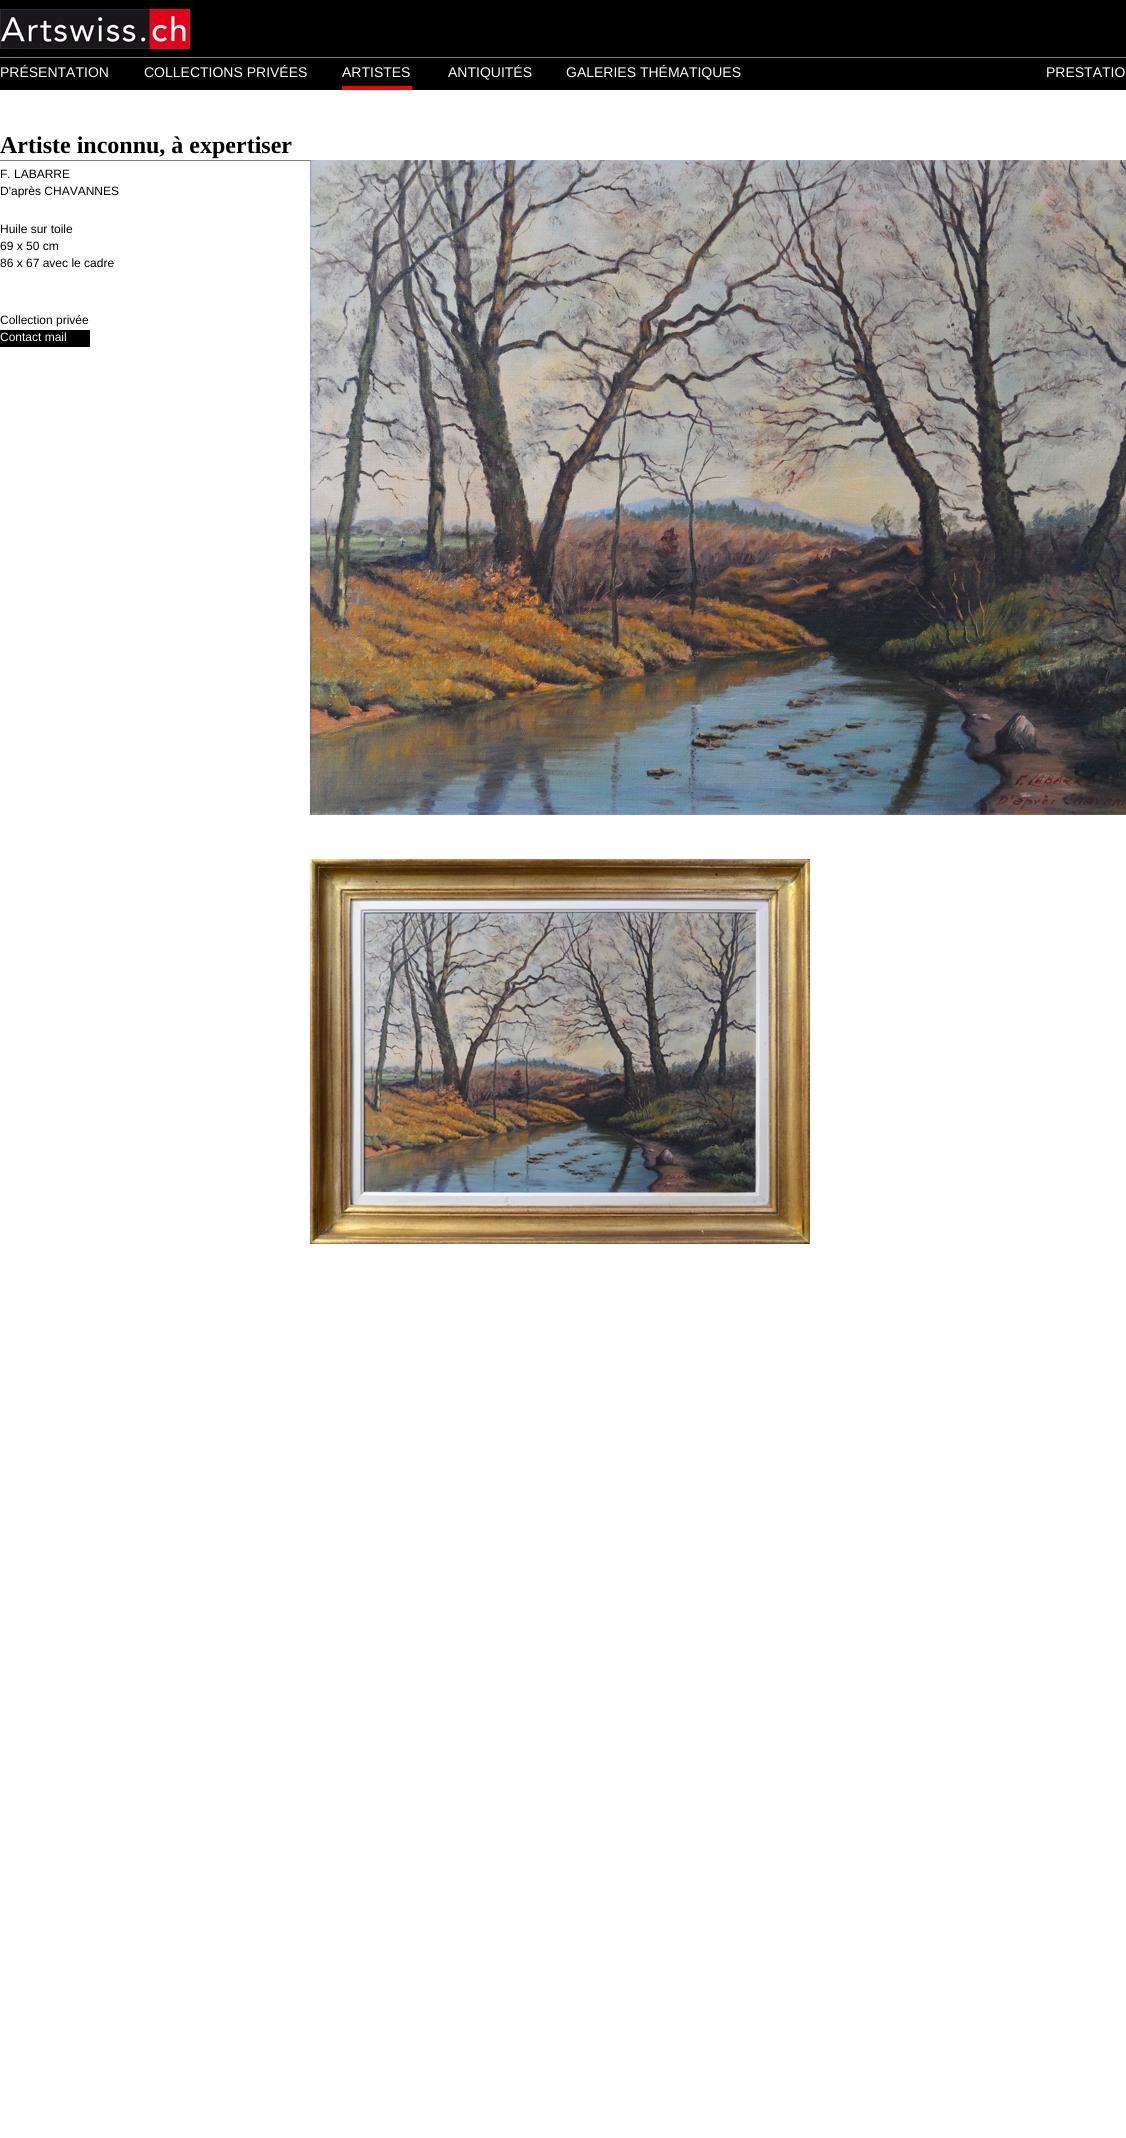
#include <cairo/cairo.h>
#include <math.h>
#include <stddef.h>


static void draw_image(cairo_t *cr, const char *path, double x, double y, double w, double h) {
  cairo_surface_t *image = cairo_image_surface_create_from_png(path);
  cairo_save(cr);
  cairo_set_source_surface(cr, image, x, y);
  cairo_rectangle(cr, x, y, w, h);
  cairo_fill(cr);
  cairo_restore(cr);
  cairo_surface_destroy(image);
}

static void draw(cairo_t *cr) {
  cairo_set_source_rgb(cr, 1, 1, 1);
  cairo_paint(cr);
  cairo_set_source_rgb(cr, 0, 0, 0);
  cairo_rectangle(cr, 0, 0, 1126, 90);
  cairo_fill(cr);
  draw_image(cr, "images/1.png", 0, 9, 190, 40);
  cairo_set_source_rgb(cr, 127 / 255.0, 127 / 255.0, 127 / 255.0);
  cairo_rectangle(cr, 0, 57, 1126, 1);
  cairo_fill(cr);
  cairo_set_source_rgb(cr, 1, 0, 0);
  cairo_rectangle(cr, 342, 86, 70, 4);
  cairo_fill(cr);
  cairo_set_source_rgb(cr, 127 / 255.0, 127 / 255.0, 127 / 255.0);
  cairo_rectangle(cr, 0, 160, 310, 1);
  cairo_fill(cr);
  draw_image(cr, "images/2.png", 310, 160, 816, 655);
  cairo_set_source_rgb(cr, 0, 0, 0);
  cairo_rectangle(cr, 0, 330, 90, 17);
  cairo_fill(cr);
  draw_image(cr, "images/3.png", 310, 859, 500, 385);
  cairo_select_font_face(cr, "Liberation Sans", CAIRO_FONT_SLANT_NORMAL, CAIRO_FONT_WEIGHT_NORMAL);
  cairo_set_font_size(cr, 14);
  cairo_set_source_rgb(cr, 1, 1, 1);
  cairo_move_to(cr, 0, 77);
  cairo_show_text(cr, "PRÉSENTATION");
  cairo_move_to(cr, 144, 77);
  cairo_show_text(cr, "COLLECTIONS PRIVÉES");
  cairo_move_to(cr, 342, 77);
  cairo_show_text(cr, "ARTISTES");
  cairo_move_to(cr, 448, 77);
  cairo_show_text(cr, "ANTIQUITÉS");
  cairo_move_to(cr, 566, 77);
  cairo_show_text(cr, "GALERIES THÉMATIQUES");
  cairo_move_to(cr, 1046, 77);
  cairo_show_text(cr, "PRESTATIO");
  cairo_select_font_face(cr, "Liberation Serif", CAIRO_FONT_SLANT_NORMAL, CAIRO_FONT_WEIGHT_BOLD);
  cairo_set_font_size(cr, 24);
  cairo_set_source_rgb(cr, 0, 0, 0);
  cairo_move_to(cr, 0, 153);
  cairo_show_text(cr, "Artiste inconnu, à expertiser");
  cairo_select_font_face(cr, "Liberation Sans", CAIRO_FONT_SLANT_NORMAL, CAIRO_FONT_WEIGHT_NORMAL);
  cairo_set_font_size(cr, 12);
  cairo_move_to(cr, 0, 178);
  cairo_show_text(cr, "F. LABARRE");
  cairo_move_to(cr, 0, 195);
  cairo_show_text(cr, "D'après CHAVANNES");
  cairo_move_to(cr, 0, 233);
  cairo_show_text(cr, "Huile sur toile");
  cairo_move_to(cr, 0, 250);
  cairo_show_text(cr, "69 x 50 cm");
  cairo_move_to(cr, 0, 267);
  cairo_show_text(cr, "86 x 67 avec le cadre");
  cairo_move_to(cr, 0, 324);
  cairo_show_text(cr, "Collection privée");
  cairo_set_source_rgb(cr, 1, 1, 1);
  cairo_move_to(cr, 0, 341);
  cairo_show_text(cr, "Contact mail");
}

int main(void) {
  cairo_surface_t *surface = cairo_image_surface_create(CAIRO_FORMAT_RGB24, 1126, 2138);
  cairo_t *cr = cairo_create(surface);
  cairo_font_options_t *options = cairo_font_options_create();
  cairo_font_options_set_hint_metrics(options, CAIRO_HINT_METRICS_OFF);
  cairo_font_options_set_hint_style(options, CAIRO_HINT_STYLE_NONE);
  cairo_set_font_options(cr, options);
  cairo_set_miter_limit(cr, 4);
  draw(cr);
  cairo_surface_write_to_png(surface, "out.png");
  cairo_font_options_destroy(options);
  cairo_destroy(cr);
  cairo_surface_destroy(surface);
  return 0;
}
